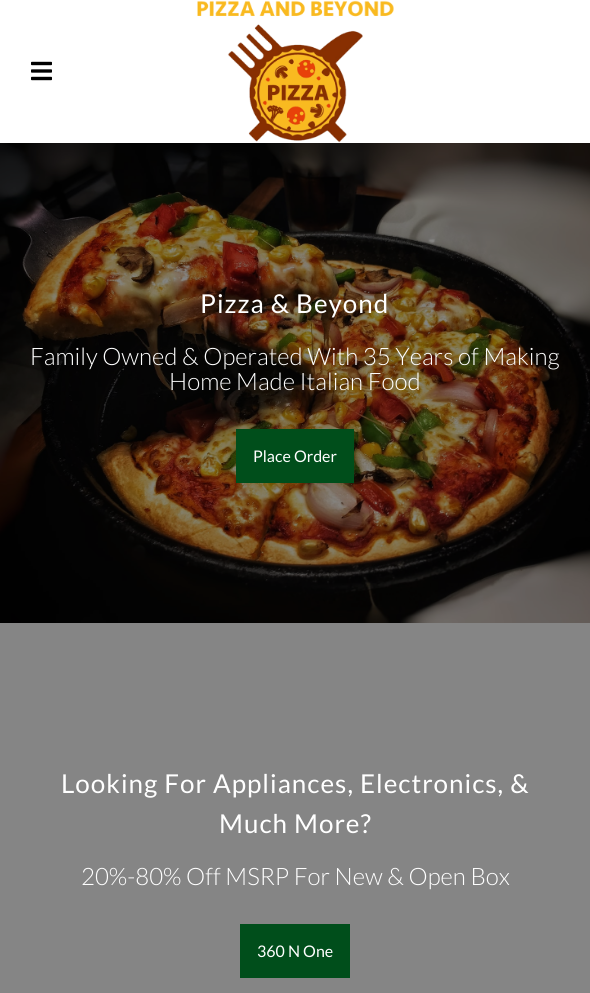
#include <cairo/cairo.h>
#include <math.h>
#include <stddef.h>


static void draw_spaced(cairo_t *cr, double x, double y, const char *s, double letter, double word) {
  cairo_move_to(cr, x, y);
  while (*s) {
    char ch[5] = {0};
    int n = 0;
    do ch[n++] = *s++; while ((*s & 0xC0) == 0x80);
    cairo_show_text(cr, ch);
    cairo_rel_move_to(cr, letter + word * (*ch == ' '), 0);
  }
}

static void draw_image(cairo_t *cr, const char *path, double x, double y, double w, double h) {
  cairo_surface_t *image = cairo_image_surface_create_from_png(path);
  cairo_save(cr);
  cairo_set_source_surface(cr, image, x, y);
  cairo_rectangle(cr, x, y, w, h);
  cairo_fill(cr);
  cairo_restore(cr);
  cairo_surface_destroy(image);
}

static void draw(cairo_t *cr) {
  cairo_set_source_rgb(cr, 1, 1, 1);
  cairo_paint(cr);
  draw_image(cr, "images/1.png", 31, 61, 21, 20);
  draw_image(cr, "images/2.png", 197, 0, 197, 143);
  draw_image(cr, "images/3.png", 0, 143, 590, 480);
  cairo_set_source_rgb(cr, 0, 78 / 255.0, 27 / 255.0);
  cairo_rectangle(cr, 236, 429, 118, 54);
  cairo_fill(cr);
  cairo_set_source_rgb(cr, 133 / 255.0, 133 / 255.0, 133 / 255.0);
  cairo_rectangle(cr, 0, 623, 590, 370);
  cairo_fill(cr);
  cairo_set_source_rgb(cr, 0, 78 / 255.0, 27 / 255.0);
  cairo_rectangle(cr, 240, 924, 110, 54);
  cairo_fill(cr);
  cairo_select_font_face(cr, "Lato", CAIRO_FONT_SLANT_NORMAL, CAIRO_FONT_WEIGHT_NORMAL);
  cairo_set_font_size(cr, 26);
  cairo_set_source_rgb(cr, 1, 1, 1);
  draw_spaced(cr, 200, 313, "Pizza & Beyond", 1, 0);
  cairo_select_font_face(cr, "Lato Light", CAIRO_FONT_SLANT_NORMAL, CAIRO_FONT_WEIGHT_NORMAL);
  cairo_set_font_size(cr, 24);
  cairo_move_to(cr, 30, 365);
  cairo_show_text(cr, "Family Owned & Operated With 35 Years of Making");
  cairo_move_to(cr, 169, 390);
  cairo_show_text(cr, "Home Made Italian Food");
  cairo_select_font_face(cr, "Lato", CAIRO_FONT_SLANT_NORMAL, CAIRO_FONT_WEIGHT_NORMAL);
  cairo_set_font_size(cr, 16);
  cairo_move_to(cr, 253, 462);
  cairo_show_text(cr, "Place Order");
  cairo_set_font_size(cr, 26);
  draw_spaced(cr, 61, 793, "Looking For Appliances, Electronics, &", 1, 0);
  draw_spaced(cr, 219, 833, "Much More?", 1, 0);
  cairo_select_font_face(cr, "Lato Light", CAIRO_FONT_SLANT_NORMAL, CAIRO_FONT_WEIGHT_NORMAL);
  cairo_set_font_size(cr, 24);
  cairo_move_to(cr, 81, 885);
  cairo_show_text(cr, "20%-80% Off MSRP For New & Open Box");
  cairo_select_font_face(cr, "Lato", CAIRO_FONT_SLANT_NORMAL, CAIRO_FONT_WEIGHT_NORMAL);
  cairo_set_font_size(cr, 16);
  cairo_move_to(cr, 257, 957);
  cairo_show_text(cr, "360 N One");
}

int main(void) {
  cairo_surface_t *surface = cairo_image_surface_create(CAIRO_FORMAT_RGB24, 590, 993);
  cairo_t *cr = cairo_create(surface);
  cairo_font_options_t *options = cairo_font_options_create();
  cairo_font_options_set_hint_metrics(options, CAIRO_HINT_METRICS_OFF);
  cairo_font_options_set_hint_style(options, CAIRO_HINT_STYLE_NONE);
  cairo_set_font_options(cr, options);
  cairo_set_miter_limit(cr, 4);
  draw(cr);
  cairo_surface_write_to_png(surface, "out.png");
  cairo_font_options_destroy(options);
  cairo_destroy(cr);
  cairo_surface_destroy(surface);
  return 0;
}
